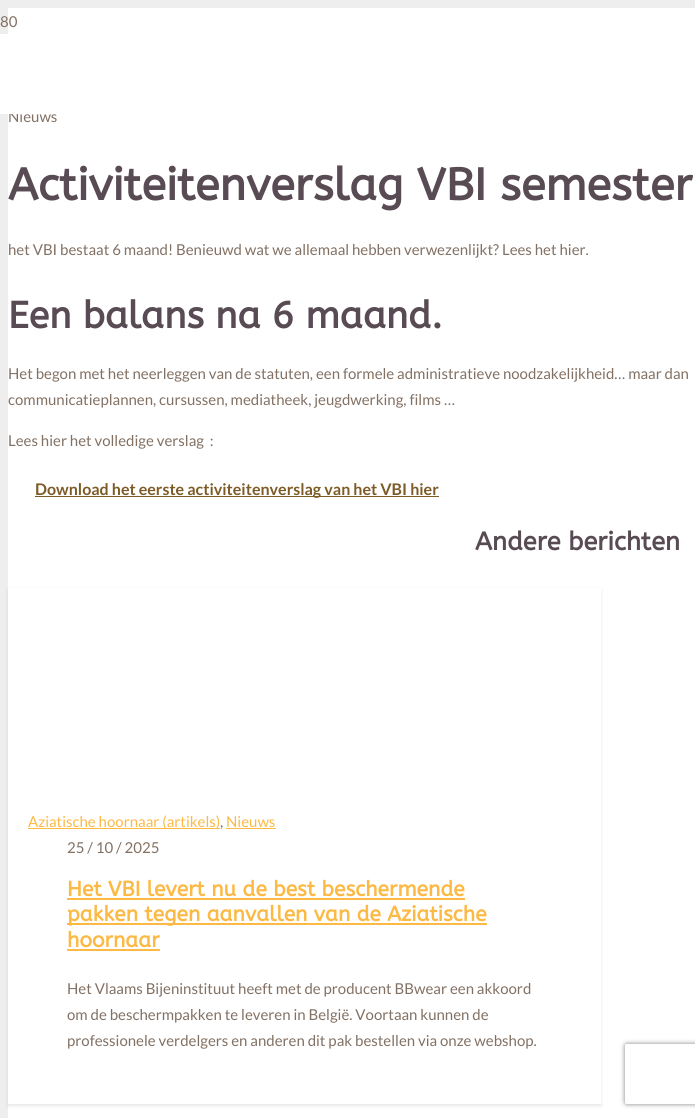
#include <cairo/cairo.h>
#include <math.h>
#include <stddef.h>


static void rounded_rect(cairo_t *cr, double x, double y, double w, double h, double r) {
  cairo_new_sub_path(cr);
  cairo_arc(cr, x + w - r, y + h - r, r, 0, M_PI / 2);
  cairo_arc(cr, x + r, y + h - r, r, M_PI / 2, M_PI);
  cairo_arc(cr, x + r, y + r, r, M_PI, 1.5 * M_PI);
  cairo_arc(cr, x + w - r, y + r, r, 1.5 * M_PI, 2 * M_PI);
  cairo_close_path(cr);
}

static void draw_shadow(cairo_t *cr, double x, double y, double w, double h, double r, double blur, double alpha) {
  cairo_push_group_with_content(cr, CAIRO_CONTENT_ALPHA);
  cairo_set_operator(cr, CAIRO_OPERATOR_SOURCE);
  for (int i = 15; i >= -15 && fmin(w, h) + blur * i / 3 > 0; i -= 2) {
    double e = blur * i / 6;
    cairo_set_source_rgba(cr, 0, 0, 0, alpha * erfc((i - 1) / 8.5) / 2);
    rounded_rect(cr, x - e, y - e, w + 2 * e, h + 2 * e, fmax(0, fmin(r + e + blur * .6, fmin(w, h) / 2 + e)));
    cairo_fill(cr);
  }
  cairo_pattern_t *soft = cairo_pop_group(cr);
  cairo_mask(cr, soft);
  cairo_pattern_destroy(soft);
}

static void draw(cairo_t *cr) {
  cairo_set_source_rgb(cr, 238 / 255.0, 238 / 255.0, 238 / 255.0);
  cairo_paint(cr);
  cairo_set_source_rgb(cr, 1, 1, 1);
  cairo_rectangle(cr, 8, 8, 687, 1110);
  cairo_fill(cr);
  cairo_set_source_rgb(cr, 125 / 255.0, 91 / 255.0, 39 / 255.0);
  cairo_rectangle(cr, 35, 496, 404, 1);
  cairo_fill(cr);
  cairo_save(cr);
  cairo_set_fill_rule(cr, CAIRO_FILL_RULE_EVEN_ODD);
  cairo_new_path(cr);
  cairo_move_to(cr, 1, 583);
  cairo_line_to(cr, 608, 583);
  cairo_line_to(cr, 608, 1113);
  cairo_line_to(cr, 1, 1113);
  cairo_close_path(cr);
  cairo_move_to(cr, 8, 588);
  cairo_line_to(cr, 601, 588);
  cairo_line_to(cr, 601, 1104);
  cairo_line_to(cr, 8, 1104);
  cairo_close_path(cr);
  cairo_clip(cr);
  cairo_set_source_rgb(cr, 0, 0, 0);
  draw_shadow(cr, 8, 590, 593, 516, 0, 2, 0.1);
  cairo_restore(cr);
  cairo_set_source_rgb(cr, 252 / 255.0, 185 / 255.0, 68 / 255.0);
  cairo_rectangle(cr, 28, 828, 192, 1);
  cairo_fill(cr);
  cairo_rectangle(cr, 226, 828, 50, 1);
  cairo_fill(cr);
  cairo_rectangle(cr, 67, 898, 398, 2);
  cairo_fill(cr);
  cairo_rectangle(cr, 67, 923, 420, 2);
  cairo_fill(cr);
  cairo_rectangle(cr, 67, 949, 93, 2);
  cairo_fill(cr);
  cairo_save(cr);
  cairo_set_fill_rule(cr, CAIRO_FILL_RULE_EVEN_ODD);
  cairo_new_path(cr);
  cairo_move_to(cr, 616, 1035);
  cairo_line_to(cr, 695, 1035);
  cairo_line_to(cr, 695, 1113);
  cairo_line_to(cr, 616, 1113);
  cairo_close_path(cr);
  cairo_move_to(cr, 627, 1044);
  cairo_line_to(cr, 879, 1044);
  cairo_curve_to(cr, 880, 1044, 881, 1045, 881, 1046);
  cairo_line_to(cr, 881, 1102);
  cairo_curve_to(cr, 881, 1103, 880, 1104, 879, 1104);
  cairo_line_to(cr, 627, 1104);
  cairo_curve_to(cr, 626, 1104, 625, 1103, 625, 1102);
  cairo_line_to(cr, 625, 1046);
  cairo_curve_to(cr, 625, 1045, 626, 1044, 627, 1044);
  cairo_close_path(cr);
  cairo_clip(cr);
  cairo_set_source_rgb(cr, 128 / 255.0, 128 / 255.0, 128 / 255.0);
  draw_shadow(cr, 625, 1044, 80, 60, 2, 2.5, 1);
  cairo_restore(cr);
  cairo_select_font_face(cr, "Lato", CAIRO_FONT_SLANT_NORMAL, CAIRO_FONT_WEIGHT_NORMAL);
  cairo_set_font_size(cr, 15);
  cairo_set_source_rgb(cr, 130 / 255.0, 112 / 255.0, 99 / 255.0);
  cairo_move_to(cr, 0, 27);
  cairo_show_text(cr, "80");
  cairo_move_to(cr, 8, 122);
  cairo_show_text(cr, "Nieuws");
  cairo_set_source_rgb(cr, 1, 1, 1);
  cairo_rectangle(cr, 0, 34, 23, 80);
  cairo_fill(cr);
  cairo_select_font_face(cr, "ABeeZee", CAIRO_FONT_SLANT_NORMAL, CAIRO_FONT_WEIGHT_BOLD);
  cairo_set_font_size(cr, 45);
  cairo_set_source_rgb(cr, 88 / 255.0, 75 / 255.0, 83 / 255.0);
  cairo_move_to(cr, 8, 200);
  cairo_show_text(cr, "Activiteitenverslag VBI semester");
  cairo_select_font_face(cr, "Lato", CAIRO_FONT_SLANT_NORMAL, CAIRO_FONT_WEIGHT_NORMAL);
  cairo_set_font_size(cr, 15);
  cairo_set_source_rgb(cr, 130 / 255.0, 112 / 255.0, 99 / 255.0);
  cairo_move_to(cr, 8, 255);
  cairo_show_text(cr, "het VBI bestaat 6 maand! Benieuwd wat we allemaal hebben verwezenlijkt? Lees het hier.");
  cairo_select_font_face(cr, "ABeeZee", CAIRO_FONT_SLANT_NORMAL, CAIRO_FONT_WEIGHT_BOLD);
  cairo_set_font_size(cr, 37.5);
  cairo_set_source_rgb(cr, 88 / 255.0, 75 / 255.0, 83 / 255.0);
  cairo_move_to(cr, 8, 328);
  cairo_show_text(cr, "Een balans na 6 maand.");
  cairo_select_font_face(cr, "Lato", CAIRO_FONT_SLANT_NORMAL, CAIRO_FONT_WEIGHT_NORMAL);
  cairo_set_font_size(cr, 15);
  cairo_set_source_rgb(cr, 130 / 255.0, 112 / 255.0, 99 / 255.0);
  cairo_move_to(cr, 8, 379);
  cairo_show_text(cr, "Het begon met het neerleggen van de statuten, een formele administratieve noodzakelijkheid… maar dan");
  cairo_move_to(cr, 8, 405);
  cairo_show_text(cr, "communicatieplannen, cursussen, mediatheek, jeugdwerking, films …");
  cairo_move_to(cr, 8, 446);
  cairo_show_text(cr, "Lees hier het volledige verslag  :");
  cairo_select_font_face(cr, "Lato", CAIRO_FONT_SLANT_NORMAL, CAIRO_FONT_WEIGHT_BOLD);
  cairo_set_font_size(cr, 16);
  cairo_set_source_rgb(cr, 125 / 255.0, 91 / 255.0, 39 / 255.0);
  cairo_move_to(cr, 35, 495);
  cairo_show_text(cr, "Download het eerste activiteitenverslag van het VBI hier");
  cairo_select_font_face(cr, "ABeeZee", CAIRO_FONT_SLANT_NORMAL, CAIRO_FONT_WEIGHT_BOLD);
  cairo_set_font_size(cr, 25.5);
  cairo_set_source_rgb(cr, 88 / 255.0, 75 / 255.0, 83 / 255.0);
  cairo_move_to(cr, 475, 550);
  cairo_show_text(cr, "Andere berichten");
  cairo_select_font_face(cr, "Lato", CAIRO_FONT_SLANT_NORMAL, CAIRO_FONT_WEIGHT_NORMAL);
  cairo_set_font_size(cr, 15);
  cairo_set_source_rgb(cr, 252 / 255.0, 185 / 255.0, 68 / 255.0);
  cairo_move_to(cr, 28, 827);
  cairo_show_text(cr, "Aziatische hoornaar (artikels)");
  cairo_set_source_rgb(cr, 130 / 255.0, 112 / 255.0, 99 / 255.0);
  cairo_move_to(cr, 220, 827);
  cairo_show_text(cr, ",");
  cairo_set_source_rgb(cr, 252 / 255.0, 185 / 255.0, 68 / 255.0);
  cairo_move_to(cr, 226, 827);
  cairo_show_text(cr, "Nieuws");
  cairo_set_source_rgb(cr, 130 / 255.0, 112 / 255.0, 99 / 255.0);
  cairo_move_to(cr, 67, 853);
  cairo_show_text(cr, "25 / 10 / 2025");
  cairo_select_font_face(cr, "ABeeZee", CAIRO_FONT_SLANT_NORMAL, CAIRO_FONT_WEIGHT_BOLD);
  cairo_set_font_size(cr, 21);
  cairo_set_source_rgb(cr, 252 / 255.0, 185 / 255.0, 68 / 255.0);
  cairo_move_to(cr, 67, 896);
  cairo_show_text(cr, "Het VBI levert nu de best beschermende");
  cairo_move_to(cr, 67, 921);
  cairo_show_text(cr, "pakken tegen aanvallen van de Aziatische");
  cairo_move_to(cr, 67, 947);
  cairo_show_text(cr, "hoornaar");
  cairo_select_font_face(cr, "Lato", CAIRO_FONT_SLANT_NORMAL, CAIRO_FONT_WEIGHT_NORMAL);
  cairo_set_font_size(cr, 15);
  cairo_set_source_rgb(cr, 130 / 255.0, 112 / 255.0, 99 / 255.0);
  cairo_move_to(cr, 67, 994);
  cairo_show_text(cr, "Het Vlaams Bijeninstituut heeft met de producent BBwear een akkoord");
  cairo_move_to(cr, 67, 1020);
  cairo_show_text(cr, "om de beschermpakken te leveren in België. Voortaan kunnen de");
  cairo_move_to(cr, 67, 1046);
  cairo_show_text(cr, "professionele verdelgers en anderen dit pak bestellen via onze webshop.");
}

int main(void) {
  cairo_surface_t *surface = cairo_image_surface_create(CAIRO_FORMAT_RGB24, 695, 1118);
  cairo_t *cr = cairo_create(surface);
  cairo_font_options_t *options = cairo_font_options_create();
  cairo_font_options_set_hint_metrics(options, CAIRO_HINT_METRICS_OFF);
  cairo_font_options_set_hint_style(options, CAIRO_HINT_STYLE_NONE);
  cairo_set_font_options(cr, options);
  cairo_set_miter_limit(cr, 4);
  draw(cr);
  cairo_surface_write_to_png(surface, "out.png");
  cairo_font_options_destroy(options);
  cairo_destroy(cr);
  cairo_surface_destroy(surface);
  return 0;
}
